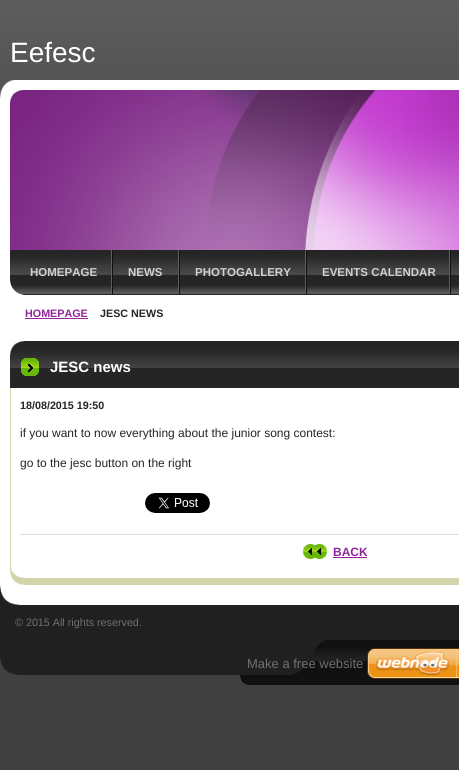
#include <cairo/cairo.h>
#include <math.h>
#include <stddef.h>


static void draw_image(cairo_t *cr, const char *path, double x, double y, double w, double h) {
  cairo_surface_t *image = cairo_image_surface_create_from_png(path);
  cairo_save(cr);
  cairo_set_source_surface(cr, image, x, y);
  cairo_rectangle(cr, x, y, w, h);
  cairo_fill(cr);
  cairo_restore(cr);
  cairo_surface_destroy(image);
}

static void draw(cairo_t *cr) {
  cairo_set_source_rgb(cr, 64 / 255.0, 64 / 255.0, 64 / 255.0);
  cairo_paint(cr);
  draw_image(cr, "images/1.png", 0, 0, 459, 91);
  draw_image(cr, "images/2.png", 0, 80, 459, 170);
  draw_image(cr, "images/4.png", 10, 90, 449, 160);
  draw_image(cr, "images/3.png", 0, 80, 23, 23);
  draw_image(cr, "images/5.png", 0, 250, 459, 45);
  cairo_set_source_rgb(cr, 16 / 255.0, 16 / 255.0, 16 / 255.0);
  cairo_rectangle(cr, 112, 250, 1, 44);
  cairo_fill(cr);
  cairo_set_source_rgb(cr, 95 / 255.0, 95 / 255.0, 95 / 255.0);
  cairo_rectangle(cr, 111, 250, 1, 44);
  cairo_fill(cr);
  cairo_set_source_rgb(cr, 16 / 255.0, 16 / 255.0, 16 / 255.0);
  cairo_rectangle(cr, 179, 250, 1, 44);
  cairo_fill(cr);
  cairo_set_source_rgb(cr, 95 / 255.0, 95 / 255.0, 95 / 255.0);
  cairo_rectangle(cr, 178, 250, 1, 44);
  cairo_fill(cr);
  cairo_set_source_rgb(cr, 16 / 255.0, 16 / 255.0, 16 / 255.0);
  cairo_rectangle(cr, 306, 250, 1, 44);
  cairo_fill(cr);
  cairo_set_source_rgb(cr, 95 / 255.0, 95 / 255.0, 95 / 255.0);
  cairo_rectangle(cr, 305, 250, 1, 44);
  cairo_fill(cr);
  cairo_set_source_rgb(cr, 16 / 255.0, 16 / 255.0, 16 / 255.0);
  cairo_rectangle(cr, 450, 250, 1, 44);
  cairo_fill(cr);
  cairo_set_source_rgb(cr, 95 / 255.0, 95 / 255.0, 95 / 255.0);
  cairo_rectangle(cr, 449, 250, 1, 44);
  cairo_fill(cr);
  draw_image(cr, "images/6.png", 10, 281, 13, 14);
  cairo_set_source_rgb(cr, 1, 1, 1);
  cairo_rectangle(cr, 0, 295, 459, 310);
  cairo_fill(cr);
  cairo_set_source_rgb(cr, 144 / 255.0, 37 / 255.0, 153 / 255.0);
  cairo_rectangle(cr, 25, 318, 63, 1);
  cairo_fill(cr);
  draw_image(cr, "images/7.png", 0, 585, 20, 20);
  draw_image(cr, "images/8.png", 10, 341, 449, 15);
  cairo_set_source_rgb(cr, 211 / 255.0, 212 / 255.0, 170 / 255.0);
  cairo_rectangle(cr, 25, 578, 434, 7);
  cairo_fill(cr);
  cairo_rectangle(cr, 10, 388, 1, 180);
  cairo_fill(cr);
  draw_image(cr, "images/9.png", 10, 568, 15, 17);
  cairo_set_source_rgb(cr, 37 / 255.0, 37 / 255.0, 37 / 255.0);
  cairo_rectangle(cr, 10, 376, 449, 12);
  cairo_fill(cr);
  draw_image(cr, "images/10.png", 10, 356, 449, 20);
  draw_image(cr, "images/11.png", 145, 493, 65, 20);
  cairo_set_source_rgb(cr, 221 / 255.0, 221 / 255.0, 221 / 255.0);
  cairo_rectangle(cr, 20, 534, 439, 1);
  cairo_fill(cr);
  draw_image(cr, "images/12.png", 303, 544, 24, 15);
  cairo_set_source_rgb(cr, 144 / 255.0, 37 / 255.0, 153 / 255.0);
  cairo_rectangle(cr, 333, 557, 34, 1);
  cairo_fill(cr);
  cairo_set_source_rgb(cr, 32 / 255.0, 32 / 255.0, 32 / 255.0);
  cairo_rectangle(cr, 0, 605, 459, 35);
  cairo_fill(cr);
  draw_image(cr, "images/13.png", 0, 640, 459, 45);
  draw_image(cr, "images/14.png", 367, 648, 92, 31);
  cairo_select_font_face(cr, "Liberation Sans", CAIRO_FONT_SLANT_NORMAL, CAIRO_FONT_WEIGHT_NORMAL);
  cairo_set_font_size(cr, 28);
  cairo_set_source_rgb(cr, 1, 1, 1);
  cairo_move_to(cr, 10, 62);
  cairo_show_text(cr, "Eefesc");
  cairo_select_font_face(cr, "Liberation Sans", CAIRO_FONT_SLANT_NORMAL, CAIRO_FONT_WEIGHT_BOLD);
  cairo_set_font_size(cr, 11.5);
  cairo_set_source_rgb(cr, 208 / 255.0, 208 / 255.0, 208 / 255.0);
  cairo_move_to(cr, 30, 276);
  cairo_show_text(cr, "HOMEPAGE");
  cairo_move_to(cr, 128, 276);
  cairo_show_text(cr, "NEWS");
  cairo_move_to(cr, 195, 276);
  cairo_show_text(cr, "PHOTOGALLERY");
  cairo_move_to(cr, 322, 276);
  cairo_show_text(cr, "EVENTS CALENDAR");
  cairo_set_font_size(cr, 10.75);
  cairo_set_source_rgb(cr, 144 / 255.0, 37 / 255.0, 153 / 255.0);
  cairo_move_to(cr, 25, 317);
  cairo_show_text(cr, "HOMEPAGE");
  cairo_set_source_rgb(cr, 37 / 255.0, 37 / 255.0, 37 / 255.0);
  cairo_move_to(cr, 100, 317);
  cairo_show_text(cr, "JESC NEWS");
  cairo_set_font_size(cr, 15);
  cairo_set_source_rgb(cr, 1, 1, 1);
  cairo_move_to(cr, 50, 372);
  cairo_show_text(cr, "JESC news");
  cairo_set_font_size(cr, 10.75);
  cairo_set_source_rgb(cr, 37 / 255.0, 37 / 255.0, 37 / 255.0);
  cairo_move_to(cr, 20, 409);
  cairo_show_text(cr, "18/08/2015 19:50");
  cairo_select_font_face(cr, "Liberation Sans", CAIRO_FONT_SLANT_NORMAL, CAIRO_FONT_WEIGHT_NORMAL);
  cairo_set_font_size(cr, 12);
  cairo_move_to(cr, 20, 437);
  cairo_show_text(cr, "if you want to now everything about the junior song contest:");
  cairo_move_to(cr, 20, 467);
  cairo_show_text(cr, "go to the jesc button on the right");
  cairo_select_font_face(cr, "Liberation Sans", CAIRO_FONT_SLANT_NORMAL, CAIRO_FONT_WEIGHT_BOLD);
  cairo_set_source_rgb(cr, 144 / 255.0, 37 / 255.0, 153 / 255.0);
  cairo_move_to(cr, 333, 556);
  cairo_show_text(cr, "BACK");
  cairo_select_font_face(cr, "Liberation Sans", CAIRO_FONT_SLANT_NORMAL, CAIRO_FONT_WEIGHT_NORMAL);
  cairo_set_font_size(cr, 10.75);
  cairo_set_source_rgb(cr, 112 / 255.0, 112 / 255.0, 112 / 255.0);
  cairo_move_to(cr, 15, 626);
  cairo_show_text(cr, "© 2015 All rights reserved.");
  cairo_set_font_size(cr, 13);
  cairo_move_to(cr, 247, 668);
  cairo_show_text(cr, "Make a free website");
}

int main(void) {
  cairo_surface_t *surface = cairo_image_surface_create(CAIRO_FORMAT_RGB24, 459, 770);
  cairo_t *cr = cairo_create(surface);
  cairo_font_options_t *options = cairo_font_options_create();
  cairo_font_options_set_hint_metrics(options, CAIRO_HINT_METRICS_OFF);
  cairo_font_options_set_hint_style(options, CAIRO_HINT_STYLE_NONE);
  cairo_set_font_options(cr, options);
  cairo_set_miter_limit(cr, 4);
  draw(cr);
  cairo_surface_write_to_png(surface, "out.png");
  cairo_font_options_destroy(options);
  cairo_destroy(cr);
  cairo_surface_destroy(surface);
  return 0;
}
